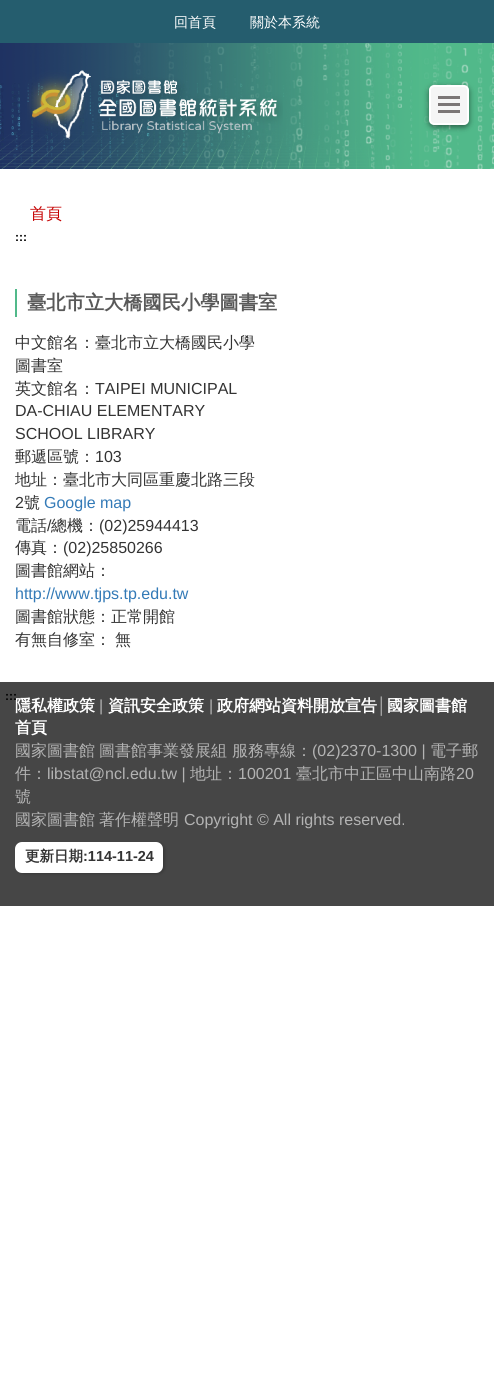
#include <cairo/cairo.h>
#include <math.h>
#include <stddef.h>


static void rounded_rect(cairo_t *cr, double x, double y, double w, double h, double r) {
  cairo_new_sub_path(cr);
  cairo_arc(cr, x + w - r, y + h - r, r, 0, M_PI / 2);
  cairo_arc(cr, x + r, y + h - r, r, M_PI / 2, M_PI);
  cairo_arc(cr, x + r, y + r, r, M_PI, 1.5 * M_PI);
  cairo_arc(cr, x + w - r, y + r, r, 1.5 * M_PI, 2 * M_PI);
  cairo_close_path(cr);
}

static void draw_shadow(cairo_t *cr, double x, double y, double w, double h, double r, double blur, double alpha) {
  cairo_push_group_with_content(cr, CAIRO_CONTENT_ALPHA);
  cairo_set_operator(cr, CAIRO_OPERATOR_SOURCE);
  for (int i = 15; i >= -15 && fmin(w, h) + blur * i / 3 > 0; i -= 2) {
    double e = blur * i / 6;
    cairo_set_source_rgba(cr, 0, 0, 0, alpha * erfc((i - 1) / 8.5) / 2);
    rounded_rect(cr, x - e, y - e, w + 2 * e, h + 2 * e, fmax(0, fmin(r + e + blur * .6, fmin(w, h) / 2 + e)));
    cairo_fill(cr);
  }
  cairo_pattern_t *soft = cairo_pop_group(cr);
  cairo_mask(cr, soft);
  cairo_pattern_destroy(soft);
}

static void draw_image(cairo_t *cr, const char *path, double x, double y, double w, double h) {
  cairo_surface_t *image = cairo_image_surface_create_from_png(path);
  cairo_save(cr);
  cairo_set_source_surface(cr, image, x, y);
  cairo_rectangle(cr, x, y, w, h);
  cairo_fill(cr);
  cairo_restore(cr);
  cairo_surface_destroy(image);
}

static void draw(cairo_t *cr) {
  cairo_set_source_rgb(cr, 1, 1, 1);
  cairo_paint(cr);
  cairo_set_source_rgb(cr, 31 / 255.0, 50 / 255.0, 98 / 255.0);
  cairo_rectangle(cr, 0, 43, 419, 126);
  cairo_fill(cr);
  draw_image(cr, "images/1.png", 0, 43, 494, 126);
  cairo_set_source_rgb(cr, 37 / 255.0, 93 / 255.0, 110 / 255.0);
  cairo_rectangle(cr, 0, 0, 494, 43);
  cairo_fill(cr);
  draw_image(cr, "images/2.png", 27, 70, 256, 69);
  cairo_set_source_rgb(cr, 0, 0, 0);
  draw_shadow(cr, 429, 87, 40, 40, 5, 3, 0.5);
  cairo_set_source_rgb(cr, 245 / 255.0, 245 / 255.0, 245 / 255.0);
  rounded_rect(cr, 430, 86, 38, 38, 4);
  cairo_fill_preserve(cr);
  cairo_set_source_rgb(cr, 1, 1, 1);
  cairo_stroke(cr);
  cairo_set_source_rgb(cr, 123 / 255.0, 118 / 255.0, 118 / 255.0);
  cairo_rectangle(cr, 438, 96, 22, 3);
  cairo_fill(cr);
  cairo_rectangle(cr, 438, 103, 22, 3);
  cairo_fill(cr);
  cairo_rectangle(cr, 438, 110, 22, 3);
  cairo_fill(cr);
  cairo_set_source_rgb(cr, 81 / 255.0, 185 / 255.0, 138 / 255.0);
  cairo_rectangle(cr, 15, 289, 2, 28);
  cairo_fill(cr);
  cairo_set_source_rgb(cr, 70 / 255.0, 70 / 255.0, 70 / 255.0);
  cairo_rectangle(cr, 0, 682, 494, 224);
  cairo_fill(cr);
  cairo_set_source_rgb(cr, 0, 0, 0);
  draw_shadow(cr, 17, 843, 148, 31, 7, 1.5, 0.2);
  cairo_set_source_rgb(cr, 1, 1, 1);
  rounded_rect(cr, 15, 842, 148, 31, 7);
  cairo_fill(cr);
  cairo_select_font_face(cr, "WenQuanYi Zen Hei Medium", CAIRO_FONT_SLANT_NORMAL, CAIRO_FONT_WEIGHT_NORMAL);
  cairo_set_font_size(cr, 14);
  cairo_move_to(cr, 174, 27);
  cairo_show_text(cr, "回首頁");
  cairo_move_to(cr, 250, 27);
  cairo_show_text(cr, "關於本系統");
  cairo_set_font_size(cr, 16);
  cairo_set_source_rgb(cr, 197 / 255.0, 0, 0);
  cairo_move_to(cr, 30, 219);
  cairo_show_text(cr, "首頁");
  cairo_select_font_face(cr, "Liberation Sans", CAIRO_FONT_SLANT_NORMAL, CAIRO_FONT_WEIGHT_BOLD);
  cairo_set_font_size(cr, 12);
  cairo_set_source_rgb(cr, 0, 0, 0);
  cairo_move_to(cr, 15, 241);
  cairo_show_text(cr, ":::");
  cairo_select_font_face(cr, "WenQuanYi Zen Hei", CAIRO_FONT_SLANT_NORMAL, CAIRO_FONT_WEIGHT_BOLD);
  cairo_set_font_size(cr, 19.25);
  cairo_set_source_rgb(cr, 89 / 255.0, 89 / 255.0, 89 / 255.0);
  cairo_move_to(cr, 27, 309);
  cairo_show_text(cr, "臺北市立大橋國民小學圖書室");
  cairo_select_font_face(cr, "WenQuanYi Zen Hei Medium", CAIRO_FONT_SLANT_NORMAL, CAIRO_FONT_WEIGHT_NORMAL);
  cairo_set_font_size(cr, 16);
  cairo_set_source_rgb(cr, 51 / 255.0, 51 / 255.0, 51 / 255.0);
  cairo_move_to(cr, 15, 348);
  cairo_show_text(cr, "中文館名：臺北市立大橋國民小學");
  cairo_move_to(cr, 15, 371);
  cairo_show_text(cr, "圖書室");
  cairo_move_to(cr, 15, 394);
  cairo_show_text(cr, "英文館名：");
  cairo_select_font_face(cr, "Liberation Sans", CAIRO_FONT_SLANT_NORMAL, CAIRO_FONT_WEIGHT_NORMAL);
  cairo_move_to(cr, 95, 394);
  cairo_show_text(cr, "TAIPEI MUNICIPAL");
  cairo_move_to(cr, 15, 416);
  cairo_show_text(cr, "DA-CHIAU ELEMENTARY");
  cairo_move_to(cr, 15, 439);
  cairo_show_text(cr, "SCHOOL LIBRARY");
  cairo_select_font_face(cr, "WenQuanYi Zen Hei Medium", CAIRO_FONT_SLANT_NORMAL, CAIRO_FONT_WEIGHT_NORMAL);
  cairo_move_to(cr, 15, 462);
  cairo_show_text(cr, "郵遞區號：");
  cairo_select_font_face(cr, "Liberation Sans", CAIRO_FONT_SLANT_NORMAL, CAIRO_FONT_WEIGHT_NORMAL);
  cairo_move_to(cr, 95, 462);
  cairo_show_text(cr, "103");
  cairo_select_font_face(cr, "WenQuanYi Zen Hei Medium", CAIRO_FONT_SLANT_NORMAL, CAIRO_FONT_WEIGHT_NORMAL);
  cairo_move_to(cr, 15, 485);
  cairo_show_text(cr, "地址：臺北市大同區重慶北路三段");
  cairo_select_font_face(cr, "Liberation Sans", CAIRO_FONT_SLANT_NORMAL, CAIRO_FONT_WEIGHT_NORMAL);
  cairo_move_to(cr, 15, 508);
  cairo_show_text(cr, "2");
  cairo_select_font_face(cr, "WenQuanYi Zen Hei Medium", CAIRO_FONT_SLANT_NORMAL, CAIRO_FONT_WEIGHT_NORMAL);
  cairo_move_to(cr, 24, 508);
  cairo_show_text(cr, "號");
  cairo_select_font_face(cr, "Liberation Sans", CAIRO_FONT_SLANT_NORMAL, CAIRO_FONT_WEIGHT_NORMAL);
  cairo_set_source_rgb(cr, 51 / 255.0, 122 / 255.0, 183 / 255.0);
  cairo_move_to(cr, 44, 508);
  cairo_show_text(cr, "Google map");
  cairo_select_font_face(cr, "WenQuanYi Zen Hei Medium", CAIRO_FONT_SLANT_NORMAL, CAIRO_FONT_WEIGHT_NORMAL);
  cairo_set_source_rgb(cr, 51 / 255.0, 51 / 255.0, 51 / 255.0);
  cairo_move_to(cr, 15, 531);
  cairo_show_text(cr, "電話");
  cairo_select_font_face(cr, "Liberation Sans", CAIRO_FONT_SLANT_NORMAL, CAIRO_FONT_WEIGHT_NORMAL);
  cairo_move_to(cr, 47, 531);
  cairo_show_text(cr, "/");
  cairo_select_font_face(cr, "WenQuanYi Zen Hei Medium", CAIRO_FONT_SLANT_NORMAL, CAIRO_FONT_WEIGHT_NORMAL);
  cairo_move_to(cr, 51, 531);
  cairo_show_text(cr, "總機：");
  cairo_select_font_face(cr, "Liberation Sans", CAIRO_FONT_SLANT_NORMAL, CAIRO_FONT_WEIGHT_NORMAL);
  cairo_move_to(cr, 99, 531);
  cairo_show_text(cr, "(02)25944413");
  cairo_select_font_face(cr, "WenQuanYi Zen Hei Medium", CAIRO_FONT_SLANT_NORMAL, CAIRO_FONT_WEIGHT_NORMAL);
  cairo_move_to(cr, 15, 553);
  cairo_show_text(cr, "傳真：");
  cairo_select_font_face(cr, "Liberation Sans", CAIRO_FONT_SLANT_NORMAL, CAIRO_FONT_WEIGHT_NORMAL);
  cairo_move_to(cr, 63, 553);
  cairo_show_text(cr, "(02)25850266");
  cairo_select_font_face(cr, "WenQuanYi Zen Hei Medium", CAIRO_FONT_SLANT_NORMAL, CAIRO_FONT_WEIGHT_NORMAL);
  cairo_move_to(cr, 15, 576);
  cairo_show_text(cr, "圖書館網站：");
  cairo_select_font_face(cr, "Liberation Sans", CAIRO_FONT_SLANT_NORMAL, CAIRO_FONT_WEIGHT_NORMAL);
  cairo_set_source_rgb(cr, 51 / 255.0, 122 / 255.0, 183 / 255.0);
  cairo_move_to(cr, 15, 599);
  cairo_show_text(cr, "http://www.tjps.tp.edu.tw");
  cairo_select_font_face(cr, "WenQuanYi Zen Hei Medium", CAIRO_FONT_SLANT_NORMAL, CAIRO_FONT_WEIGHT_NORMAL);
  cairo_set_source_rgb(cr, 51 / 255.0, 51 / 255.0, 51 / 255.0);
  cairo_move_to(cr, 15, 622);
  cairo_show_text(cr, "圖書館狀態：正常開館");
  cairo_move_to(cr, 15, 645);
  cairo_show_text(cr, "有無自修室：");
  cairo_move_to(cr, 115, 645);
  cairo_show_text(cr, "無");
  cairo_select_font_face(cr, "WenQuanYi Zen Hei", CAIRO_FONT_SLANT_NORMAL, CAIRO_FONT_WEIGHT_BOLD);
  cairo_set_source_rgb(cr, 1, 1, 1);
  cairo_move_to(cr, 15, 711);
  cairo_show_text(cr, "隱私權政策");
  cairo_select_font_face(cr, "Liberation Sans", CAIRO_FONT_SLANT_NORMAL, CAIRO_FONT_WEIGHT_BOLD);
  cairo_set_font_size(cr, 12);
  cairo_set_source_rgb(cr, 0, 0, 0);
  cairo_move_to(cr, 5, 700);
  cairo_show_text(cr, ":::");
  cairo_select_font_face(cr, "Liberation Sans", CAIRO_FONT_SLANT_NORMAL, CAIRO_FONT_WEIGHT_NORMAL);
  cairo_set_font_size(cr, 16);
  cairo_set_source_rgb(cr, 179 / 255.0, 179 / 255.0, 179 / 255.0);
  cairo_move_to(cr, 99, 711);
  cairo_show_text(cr, "|");
  cairo_select_font_face(cr, "WenQuanYi Zen Hei", CAIRO_FONT_SLANT_NORMAL, CAIRO_FONT_WEIGHT_BOLD);
  cairo_set_source_rgb(cr, 1, 1, 1);
  cairo_move_to(cr, 108, 711);
  cairo_show_text(cr, "資訊安全政策");
  cairo_select_font_face(cr, "Liberation Sans", CAIRO_FONT_SLANT_NORMAL, CAIRO_FONT_WEIGHT_NORMAL);
  cairo_set_source_rgb(cr, 179 / 255.0, 179 / 255.0, 179 / 255.0);
  cairo_move_to(cr, 209, 711);
  cairo_show_text(cr, "|");
  cairo_select_font_face(cr, "WenQuanYi Zen Hei", CAIRO_FONT_SLANT_NORMAL, CAIRO_FONT_WEIGHT_BOLD);
  cairo_set_source_rgb(cr, 1, 1, 1);
  cairo_move_to(cr, 217, 711);
  cairo_show_text(cr, "政府網站資料開放宣告");
  cairo_select_font_face(cr, "Liberation Sans", CAIRO_FONT_SLANT_NORMAL, CAIRO_FONT_WEIGHT_NORMAL);
  cairo_set_source_rgb(cr, 179 / 255.0, 179 / 255.0, 179 / 255.0);
  cairo_move_to(cr, 377, 711);
  cairo_show_text(cr, "│");
  cairo_select_font_face(cr, "WenQuanYi Zen Hei", CAIRO_FONT_SLANT_NORMAL, CAIRO_FONT_WEIGHT_BOLD);
  cairo_set_source_rgb(cr, 1, 1, 1);
  cairo_move_to(cr, 387, 711);
  cairo_show_text(cr, "國家圖書館");
  cairo_move_to(cr, 15, 733);
  cairo_show_text(cr, "首頁");
  cairo_select_font_face(cr, "WenQuanYi Zen Hei Medium", CAIRO_FONT_SLANT_NORMAL, CAIRO_FONT_WEIGHT_NORMAL);
  cairo_set_source_rgb(cr, 179 / 255.0, 179 / 255.0, 179 / 255.0);
  cairo_move_to(cr, 15, 756);
  cairo_show_text(cr, "國家圖書館");
  cairo_move_to(cr, 99, 756);
  cairo_show_text(cr, "圖書館事業發展組");
  cairo_move_to(cr, 232, 756);
  cairo_show_text(cr, "服務專線：");
  cairo_select_font_face(cr, "Liberation Sans", CAIRO_FONT_SLANT_NORMAL, CAIRO_FONT_WEIGHT_NORMAL);
  cairo_move_to(cr, 312, 756);
  cairo_show_text(cr, "(02)2370-1300 |");
  cairo_select_font_face(cr, "WenQuanYi Zen Hei Medium", CAIRO_FONT_SLANT_NORMAL, CAIRO_FONT_WEIGHT_NORMAL);
  cairo_move_to(cr, 430, 756);
  cairo_show_text(cr, "電子郵");
  cairo_move_to(cr, 15, 779);
  cairo_show_text(cr, "件：");
  cairo_select_font_face(cr, "Liberation Sans", CAIRO_FONT_SLANT_NORMAL, CAIRO_FONT_WEIGHT_NORMAL);
  cairo_move_to(cr, 47, 779);
  cairo_show_text(cr, "libstat@ncl.edu.tw |");
  cairo_select_font_face(cr, "WenQuanYi Zen Hei Medium", CAIRO_FONT_SLANT_NORMAL, CAIRO_FONT_WEIGHT_NORMAL);
  cairo_move_to(cr, 190, 779);
  cairo_show_text(cr, "地址：");
  cairo_select_font_face(cr, "Liberation Sans", CAIRO_FONT_SLANT_NORMAL, CAIRO_FONT_WEIGHT_NORMAL);
  cairo_move_to(cr, 238, 779);
  cairo_show_text(cr, "100201");
  cairo_select_font_face(cr, "WenQuanYi Zen Hei Medium", CAIRO_FONT_SLANT_NORMAL, CAIRO_FONT_WEIGHT_NORMAL);
  cairo_move_to(cr, 296, 779);
  cairo_show_text(cr, "臺北市中正區中山南路");
  cairo_select_font_face(cr, "Liberation Sans", CAIRO_FONT_SLANT_NORMAL, CAIRO_FONT_WEIGHT_NORMAL);
  cairo_move_to(cr, 456, 779);
  cairo_show_text(cr, "20");
  cairo_select_font_face(cr, "WenQuanYi Zen Hei Medium", CAIRO_FONT_SLANT_NORMAL, CAIRO_FONT_WEIGHT_NORMAL);
  cairo_move_to(cr, 15, 802);
  cairo_show_text(cr, "號");
  cairo_move_to(cr, 15, 825);
  cairo_show_text(cr, "國家圖書館");
  cairo_move_to(cr, 99, 825);
  cairo_show_text(cr, "著作權聲明");
  cairo_select_font_face(cr, "Liberation Sans", CAIRO_FONT_SLANT_NORMAL, CAIRO_FONT_WEIGHT_NORMAL);
  cairo_move_to(cr, 184, 825);
  cairo_show_text(cr, "Copyright © All rights reserved.");
  cairo_select_font_face(cr, "WenQuanYi Zen Hei", CAIRO_FONT_SLANT_NORMAL, CAIRO_FONT_WEIGHT_BOLD);
  cairo_set_font_size(cr, 14.5);
  cairo_set_source_rgb(cr, 51 / 255.0, 51 / 255.0, 51 / 255.0);
  cairo_move_to(cr, 25, 861);
  cairo_show_text(cr, "更新日期");
  cairo_select_font_face(cr, "Liberation Sans", CAIRO_FONT_SLANT_NORMAL, CAIRO_FONT_WEIGHT_BOLD);
  cairo_move_to(cr, 83, 861);
  cairo_show_text(cr, ":114-11-24");
}

int main(void) {
  cairo_surface_t *surface = cairo_image_surface_create(CAIRO_FORMAT_RGB24, 494, 1396);
  cairo_t *cr = cairo_create(surface);
  cairo_font_options_t *options = cairo_font_options_create();
  cairo_font_options_set_hint_metrics(options, CAIRO_HINT_METRICS_OFF);
  cairo_font_options_set_hint_style(options, CAIRO_HINT_STYLE_NONE);
  cairo_set_font_options(cr, options);
  cairo_set_miter_limit(cr, 4);
  draw(cr);
  cairo_surface_write_to_png(surface, "out.png");
  cairo_font_options_destroy(options);
  cairo_destroy(cr);
  cairo_surface_destroy(surface);
  return 0;
}
